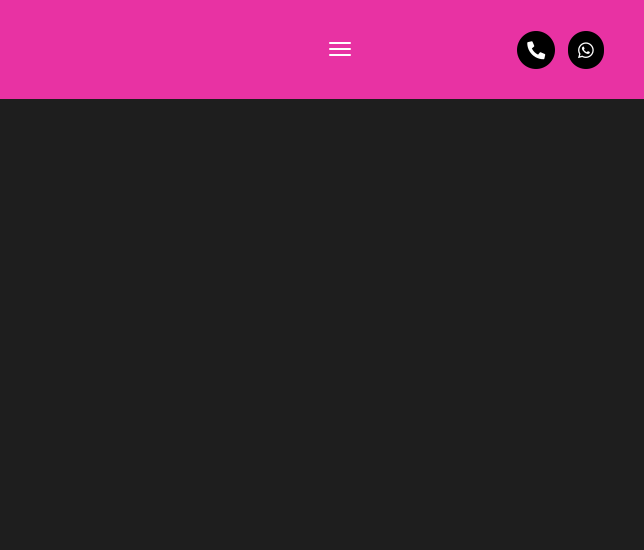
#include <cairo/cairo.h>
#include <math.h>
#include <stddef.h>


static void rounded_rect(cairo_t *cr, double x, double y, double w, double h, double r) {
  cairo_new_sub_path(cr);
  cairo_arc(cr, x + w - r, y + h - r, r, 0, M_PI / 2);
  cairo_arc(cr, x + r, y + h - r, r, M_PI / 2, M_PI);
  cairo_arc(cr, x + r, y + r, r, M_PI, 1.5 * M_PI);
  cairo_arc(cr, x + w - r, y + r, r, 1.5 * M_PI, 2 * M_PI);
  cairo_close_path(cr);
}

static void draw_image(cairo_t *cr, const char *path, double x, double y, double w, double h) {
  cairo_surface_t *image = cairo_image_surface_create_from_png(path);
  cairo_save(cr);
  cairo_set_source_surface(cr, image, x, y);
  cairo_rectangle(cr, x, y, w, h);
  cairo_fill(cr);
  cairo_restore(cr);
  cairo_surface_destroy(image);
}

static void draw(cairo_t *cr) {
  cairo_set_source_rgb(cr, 30 / 255.0, 30 / 255.0, 30 / 255.0);
  cairo_paint(cr);
  cairo_set_source_rgb(cr, 232 / 255.0, 50 / 255.0, 163 / 255.0);
  cairo_rectangle(cr, 0, 0, 644, 99);
  cairo_fill(cr);
  cairo_set_source_rgb(cr, 1, 1, 1);
  rounded_rect(cr, 329, 42, 22, 2, 1);
  cairo_fill(cr);
  rounded_rect(cr, 329, 48, 22, 2, 1);
  cairo_fill(cr);
  rounded_rect(cr, 329, 54, 22, 2, 1);
  cairo_fill(cr);
  cairo_set_source_rgb(cr, 0, 0, 0);
  cairo_new_path(cr);
  cairo_move_to(cr, 536, 31);
  cairo_curve_to(cr, 525.5, 31, 517, 39.5, 517, 50);
  cairo_curve_to(cr, 517, 60.5, 525.5, 69, 536, 69);
  cairo_curve_to(cr, 546.5, 69, 555, 60.5, 555, 50);
  cairo_curve_to(cr, 555, 39.5, 546.5, 31, 536, 31);
  cairo_close_path(cr);
  cairo_fill(cr);
  draw_image(cr, "images/1.png", 527, 41, 19, 19);
  rounded_rect(cr, 568, 31, 36, 38, 18);
  cairo_fill(cr);
  draw_image(cr, "images/2.png", 578, 42, 16, 17);
}

int main(void) {
  cairo_surface_t *surface = cairo_image_surface_create(CAIRO_FORMAT_RGB24, 644, 550);
  cairo_t *cr = cairo_create(surface);
  cairo_font_options_t *options = cairo_font_options_create();
  cairo_font_options_set_hint_metrics(options, CAIRO_HINT_METRICS_OFF);
  cairo_font_options_set_hint_style(options, CAIRO_HINT_STYLE_NONE);
  cairo_set_font_options(cr, options);
  cairo_set_miter_limit(cr, 4);
  draw(cr);
  cairo_surface_write_to_png(surface, "out.png");
  cairo_font_options_destroy(options);
  cairo_destroy(cr);
  cairo_surface_destroy(surface);
  return 0;
}
